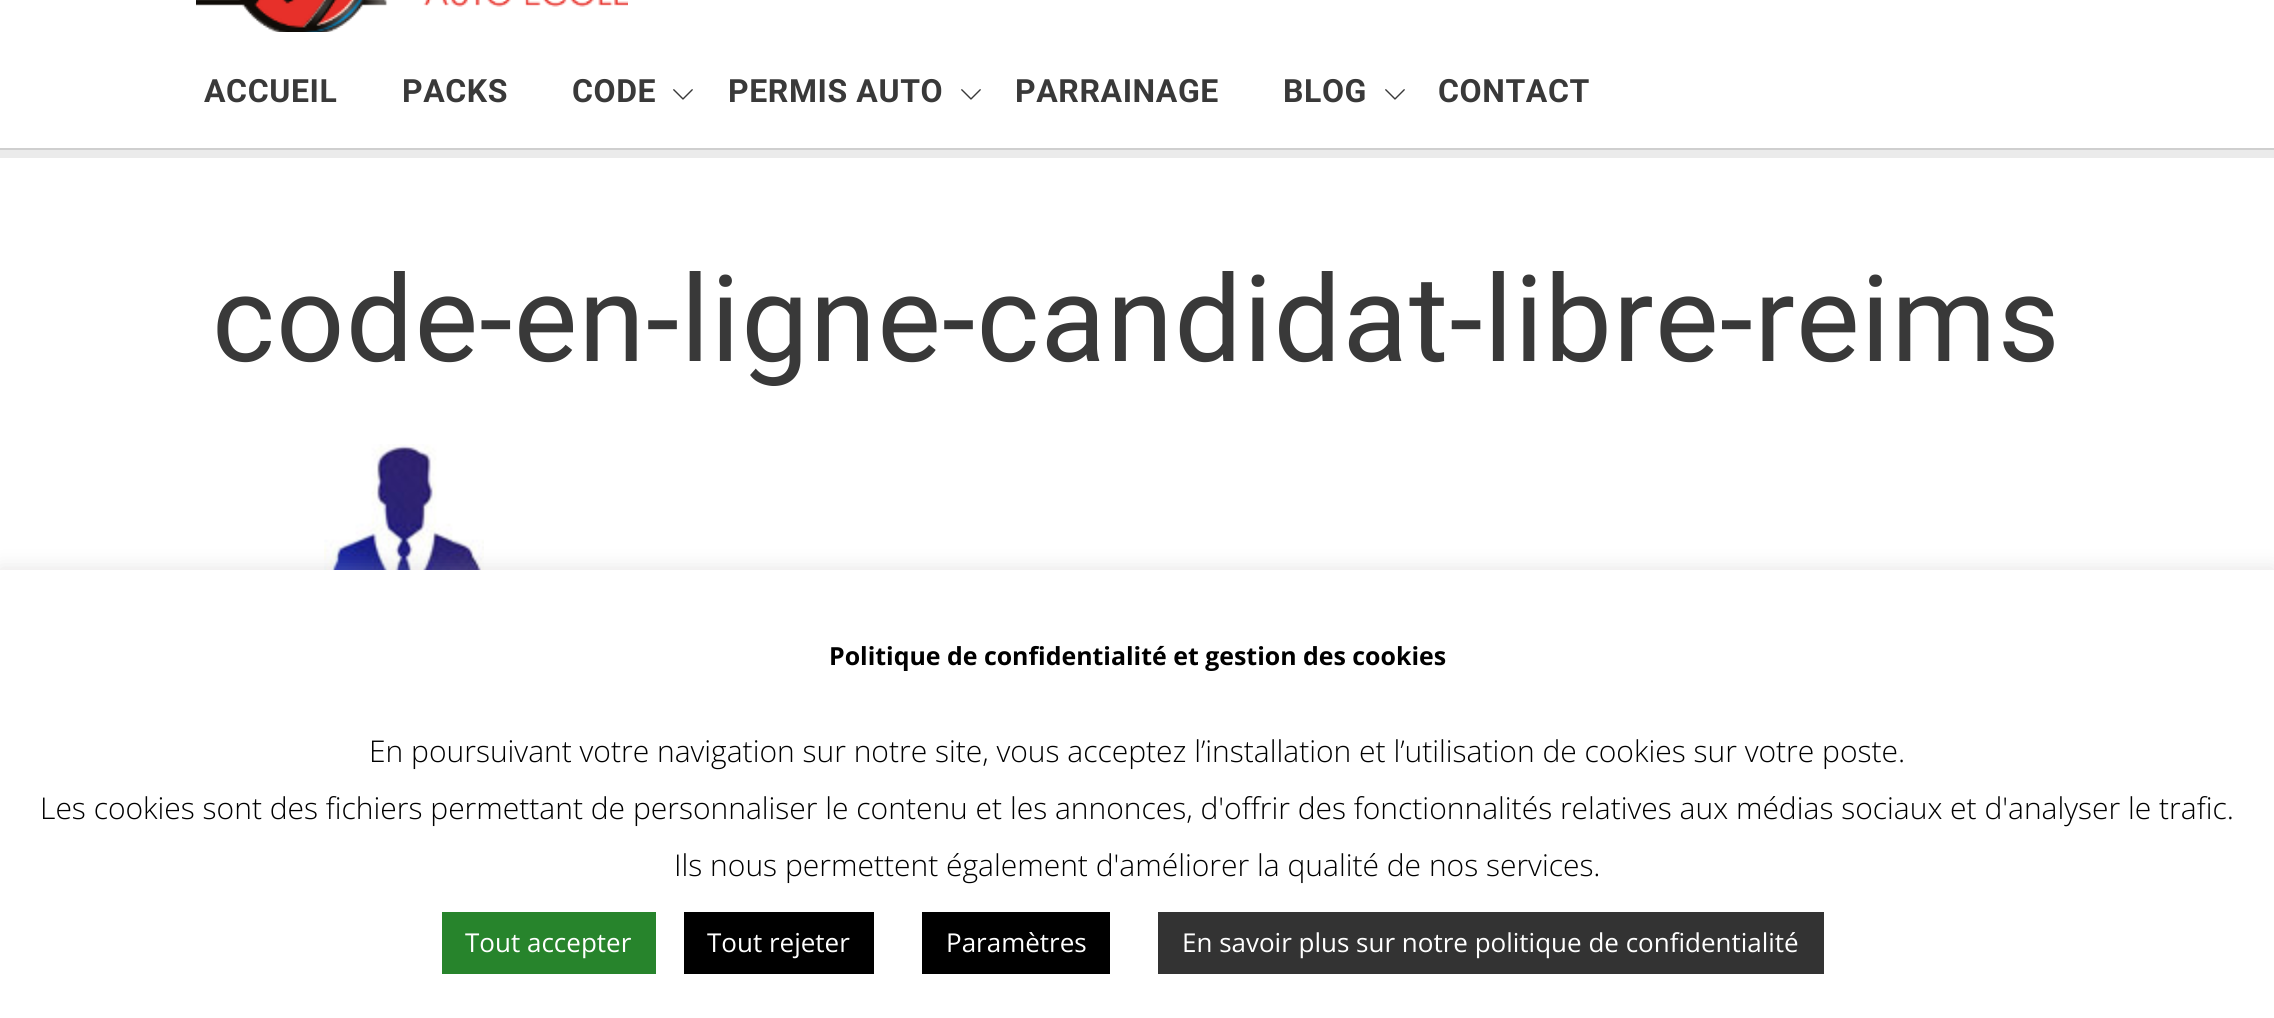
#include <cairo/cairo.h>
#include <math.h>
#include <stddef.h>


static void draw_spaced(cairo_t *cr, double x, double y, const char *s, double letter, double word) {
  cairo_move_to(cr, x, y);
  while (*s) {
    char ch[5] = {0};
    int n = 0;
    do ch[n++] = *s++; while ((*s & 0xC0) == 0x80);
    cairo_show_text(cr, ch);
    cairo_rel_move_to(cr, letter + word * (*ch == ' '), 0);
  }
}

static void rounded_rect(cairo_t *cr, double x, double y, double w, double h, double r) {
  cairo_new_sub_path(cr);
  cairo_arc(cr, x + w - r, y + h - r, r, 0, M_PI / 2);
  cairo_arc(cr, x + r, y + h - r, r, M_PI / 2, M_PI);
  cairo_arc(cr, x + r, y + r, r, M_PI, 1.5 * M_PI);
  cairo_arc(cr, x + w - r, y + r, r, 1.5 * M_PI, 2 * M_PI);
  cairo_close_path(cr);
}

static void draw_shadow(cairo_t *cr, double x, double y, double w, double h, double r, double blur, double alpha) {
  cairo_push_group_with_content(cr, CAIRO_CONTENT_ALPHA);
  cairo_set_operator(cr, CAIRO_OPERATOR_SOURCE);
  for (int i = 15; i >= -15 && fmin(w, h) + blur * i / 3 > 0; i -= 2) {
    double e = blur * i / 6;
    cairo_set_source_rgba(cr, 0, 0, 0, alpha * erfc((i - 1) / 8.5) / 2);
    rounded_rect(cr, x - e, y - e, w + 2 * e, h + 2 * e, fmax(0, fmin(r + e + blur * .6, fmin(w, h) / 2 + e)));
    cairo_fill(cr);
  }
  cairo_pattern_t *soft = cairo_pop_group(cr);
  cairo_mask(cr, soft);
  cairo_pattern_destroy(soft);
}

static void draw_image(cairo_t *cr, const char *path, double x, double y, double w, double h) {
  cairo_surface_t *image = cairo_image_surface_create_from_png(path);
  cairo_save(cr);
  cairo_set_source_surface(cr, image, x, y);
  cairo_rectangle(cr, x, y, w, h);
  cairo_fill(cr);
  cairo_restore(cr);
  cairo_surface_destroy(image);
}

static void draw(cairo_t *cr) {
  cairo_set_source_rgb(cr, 1, 1, 1);
  cairo_paint(cr);
  draw_image(cr, "images/1.png", 196, 0, 432, 32);
  draw_image(cr, "images/2.png", 673, 89, 20, 11);
  draw_image(cr, "images/2.png", 961, 89, 20, 11);
  draw_image(cr, "images/2.png", 1385, 89, 20, 11);
  cairo_set_source_rgb(cr, 207 / 255.0, 207 / 255.0, 207 / 255.0);
  cairo_rectangle(cr, 0, 148, 2274, 2);
  cairo_fill(cr);
  cairo_set_source_rgb(cr, 235 / 255.0, 235 / 255.0, 235 / 255.0);
  cairo_rectangle(cr, 0, 150, 2274, 8);
  cairo_fill(cr);
  draw_image(cr, "images/3.png", 324, 444, 160, 126);
  cairo_set_source_rgb(cr, 172 / 255.0, 171 / 255.0, 171 / 255.0);
  draw_shadow(cr, 0, 568, 2274, 448, 0, 10, 0.3);
  cairo_set_source_rgb(cr, 1, 1, 1);
  cairo_rectangle(cr, 0, 570, 2274, 448);
  cairo_fill(cr);
  cairo_set_source_rgb(cr, 39 / 255.0, 132 / 255.0, 44 / 255.0);
  cairo_rectangle(cr, 442, 912, 214, 62);
  cairo_fill(cr);
  cairo_set_source_rgb(cr, 0, 0, 0);
  cairo_rectangle(cr, 684, 912, 190, 62);
  cairo_fill(cr);
  cairo_rectangle(cr, 922, 912, 188, 62);
  cairo_fill(cr);
  cairo_set_source_rgb(cr, 51 / 255.0, 51 / 255.0, 51 / 255.0);
  cairo_rectangle(cr, 1158, 912, 666, 62);
  cairo_fill(cr);
  cairo_select_font_face(cr, "Roboto", CAIRO_FONT_SLANT_NORMAL, CAIRO_FONT_WEIGHT_BOLD);
  cairo_set_font_size(cr, 32);
  cairo_set_source_rgb(cr, 57 / 255.0, 57 / 255.0, 57 / 255.0);
  draw_spaced(cr, 204, 102, "ACCUEIL", 0.6, 0);
  draw_spaced(cr, 402, 102, "PACKS", 0.6, 0);
  draw_spaced(cr, 572, 102, "CODE", 0.6, 0);
  draw_spaced(cr, 728, 102, "PERMIS AUTO", 0.6, 0);
  draw_spaced(cr, 1015, 102, "PARRAINAGE", 0.6, 0);
  draw_spaced(cr, 1283, 102, "BLOG", 0.6, 0);
  draw_spaced(cr, 1438, 102, "CONTACT", 0.6, 0);
  cairo_select_font_face(cr, "Roboto", CAIRO_FONT_SLANT_NORMAL, CAIRO_FONT_WEIGHT_NORMAL);
  cairo_set_font_size(cr, 120);
  draw_spaced(cr, 212, 361, "code-en-ligne-candidat-libre-reims", 1.2, 0);
  cairo_select_font_face(cr, "Open Sans", CAIRO_FONT_SLANT_NORMAL, CAIRO_FONT_WEIGHT_BOLD);
  cairo_set_font_size(cr, 24.9);
  cairo_set_source_rgb(cr, 0, 0, 0);
  cairo_move_to(cr, 829, 665);
  cairo_show_text(cr, "Politique de confidentialité et gestion des cookies");
  cairo_select_font_face(cr, "Open Sans Light", CAIRO_FONT_SLANT_NORMAL, CAIRO_FONT_WEIGHT_NORMAL);
  cairo_set_font_size(cr, 30);
  cairo_move_to(cr, 369, 762);
  cairo_show_text(cr, "En poursuivant votre navigation sur notre site, vous acceptez l’installation et l’utilisation de cookies sur votre poste.");
  cairo_move_to(cr, 40, 819);
  cairo_show_text(cr, "Les cookies sont des fichiers permettant de personnaliser le contenu et les annonces, d'offrir des fonctionnalités relatives aux médias sociaux et d'analyser le trafic.");
  cairo_move_to(cr, 674, 876);
  cairo_show_text(cr, "Ils nous permettent également d'améliorer la qualité de nos services.");
  cairo_select_font_face(cr, "Open Sans", CAIRO_FONT_SLANT_NORMAL, CAIRO_FONT_WEIGHT_NORMAL);
  cairo_set_font_size(cr, 26);
  cairo_set_source_rgb(cr, 1, 1, 1);
  cairo_move_to(cr, 465, 952);
  cairo_show_text(cr, "Tout accepter");
  cairo_move_to(cr, 707, 952);
  cairo_show_text(cr, "Tout rejeter");
  cairo_move_to(cr, 946, 952);
  cairo_show_text(cr, "Paramètres");
  cairo_move_to(cr, 1182, 952);
  cairo_show_text(cr, "En savoir plus sur notre politique de confidentialité");
}

int main(void) {
  cairo_surface_t *surface = cairo_image_surface_create(CAIRO_FORMAT_RGB24, 2274, 1018);
  cairo_t *cr = cairo_create(surface);
  cairo_font_options_t *options = cairo_font_options_create();
  cairo_font_options_set_hint_metrics(options, CAIRO_HINT_METRICS_OFF);
  cairo_font_options_set_hint_style(options, CAIRO_HINT_STYLE_NONE);
  cairo_set_font_options(cr, options);
  cairo_set_miter_limit(cr, 4);
  draw(cr);
  cairo_surface_write_to_png(surface, "out.png");
  cairo_font_options_destroy(options);
  cairo_destroy(cr);
  cairo_surface_destroy(surface);
  return 0;
}
